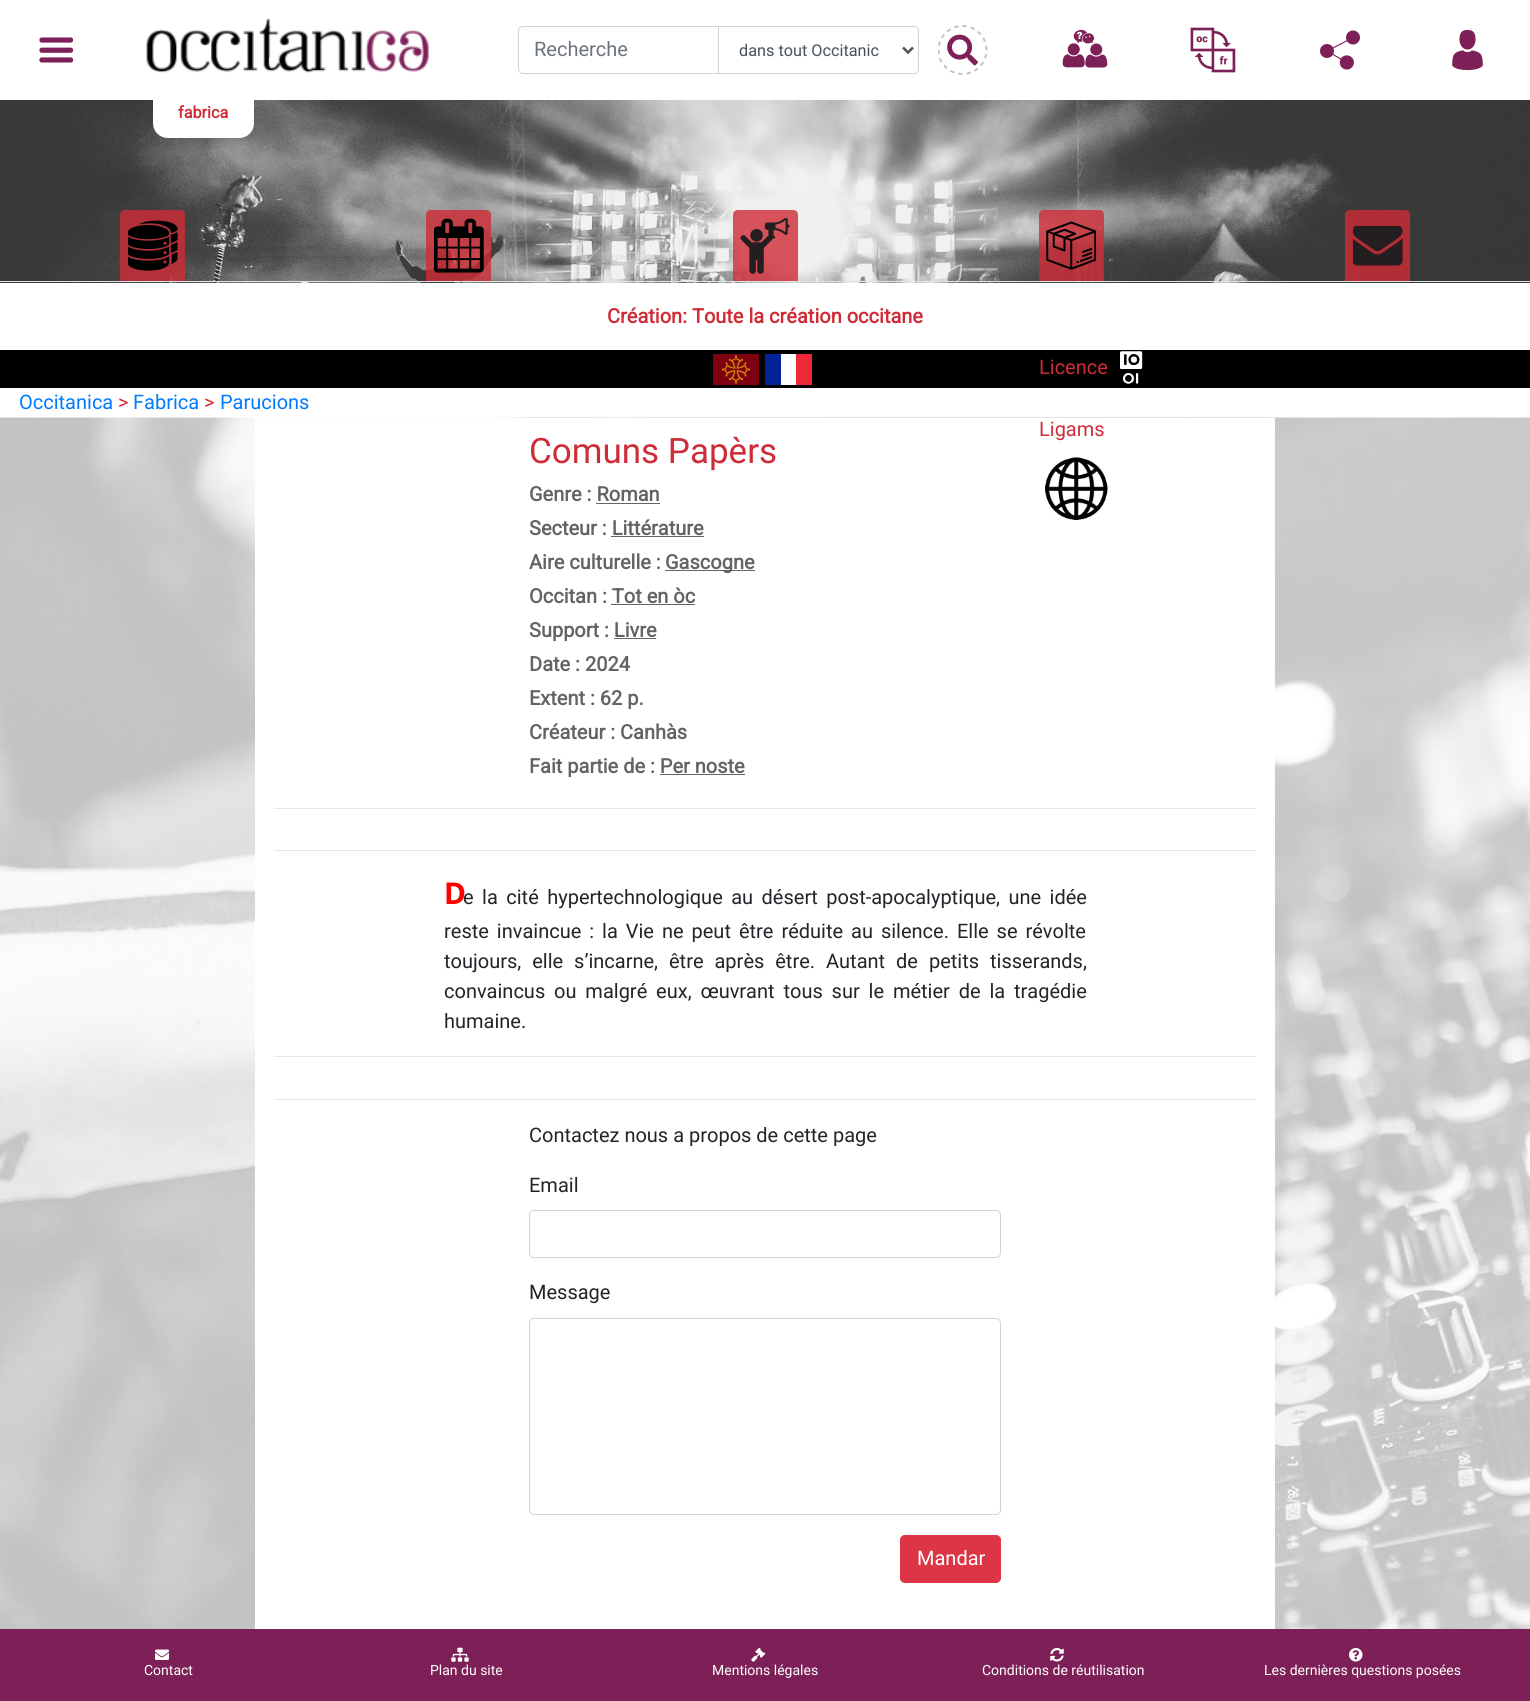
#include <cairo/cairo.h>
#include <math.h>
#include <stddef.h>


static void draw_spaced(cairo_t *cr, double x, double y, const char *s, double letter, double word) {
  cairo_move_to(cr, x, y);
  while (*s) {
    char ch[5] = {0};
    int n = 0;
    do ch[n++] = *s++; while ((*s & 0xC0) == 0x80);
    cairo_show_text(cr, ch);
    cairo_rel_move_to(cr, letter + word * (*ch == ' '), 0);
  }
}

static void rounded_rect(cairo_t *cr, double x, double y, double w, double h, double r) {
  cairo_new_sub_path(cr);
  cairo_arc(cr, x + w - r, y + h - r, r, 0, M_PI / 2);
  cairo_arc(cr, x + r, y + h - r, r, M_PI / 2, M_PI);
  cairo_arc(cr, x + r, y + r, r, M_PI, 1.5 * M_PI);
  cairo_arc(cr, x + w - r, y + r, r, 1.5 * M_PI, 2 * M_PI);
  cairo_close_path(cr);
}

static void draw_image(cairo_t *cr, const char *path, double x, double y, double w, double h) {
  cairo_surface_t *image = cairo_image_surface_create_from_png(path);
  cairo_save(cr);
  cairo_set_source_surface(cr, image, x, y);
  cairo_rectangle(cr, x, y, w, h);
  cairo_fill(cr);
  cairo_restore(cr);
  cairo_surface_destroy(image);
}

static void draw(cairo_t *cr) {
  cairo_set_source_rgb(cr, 1, 1, 1);
  cairo_paint(cr);
  draw_image(cr, "images/1.png", 39, 37, 35, 26);
  draw_image(cr, "images/2.png", 146, 18, 283, 55);
  cairo_new_path(cr);
  cairo_move_to(cr, 523, 26.5);
  cairo_line_to(cr, 718.5, 26.5);
  cairo_line_to(cr, 718.5, 73.5);
  cairo_line_to(cr, 523, 73.5);
  cairo_curve_to(cr, 520.5, 73.5, 518.5, 71.5, 518.5, 69);
  cairo_line_to(cr, 518.5, 31);
  cairo_curve_to(cr, 518.5, 28.5, 520.5, 26.5, 523, 26.5);
  cairo_close_path(cr);
  cairo_set_source_rgb(cr, 206 / 255.0, 212 / 255.0, 218 / 255.0);
  cairo_set_line_width(cr, 1);
  cairo_stroke(cr);
  cairo_new_path(cr);
  cairo_move_to(cr, 718.5, 26.5);
  cairo_line_to(cr, 914, 26.5);
  cairo_curve_to(cr, 916.5, 26.5, 918.5, 28.5, 918.5, 31);
  cairo_line_to(cr, 918.5, 69);
  cairo_curve_to(cr, 918.5, 71.5, 916.5, 73.5, 914, 73.5);
  cairo_line_to(cr, 718.5, 73.5);
  cairo_close_path(cr);
  cairo_stroke(cr);
  cairo_new_path(cr);
  cairo_move_to(cr, 903, 47.5);
  cairo_line_to(cr, 908, 52.5);
  cairo_line_to(cr, 913, 47.5);
  cairo_set_source_rgb(cr, 73 / 255.0, 80 / 255.0, 87 / 255.0);
  cairo_set_line_width(cr, 2.5);
  cairo_stroke(cr);
  draw_image(cr, "images/3.png", 938, 25, 50, 50);
  draw_image(cr, "images/4.png", 1062, 29, 46, 39);
  draw_image(cr, "images/5.png", 1190, 27, 46, 46);
  draw_image(cr, "images/6.png", 1320, 30, 40, 40);
  draw_image(cr, "images/7.png", 1452, 29, 31, 42);
  draw_image(cr, "images/8.png", 0, 100, 1530, 183);
  cairo_set_source_rgb(cr, 1, 1, 1);
  cairo_new_path(cr);
  cairo_move_to(cr, 153, 100);
  cairo_line_to(cr, 254, 100);
  cairo_line_to(cr, 254, 123);
  cairo_curve_to(cr, 254, 131.5, 247.5, 138, 239, 138);
  cairo_line_to(cr, 168, 138);
  cairo_curve_to(cr, 159.5, 138, 153, 131.5, 153, 123);
  cairo_close_path(cr);
  cairo_fill(cr);
  cairo_set_source_rgb(cr, 222 / 255.0, 226 / 255.0, 230 / 255.0);
  cairo_rectangle(cr, 0, 281, 1530, 1);
  cairo_fill(cr);
  cairo_set_source_rgba(cr, 207 / 255.0, 44 / 255.0, 55 / 255.0, 0.8);
  cairo_new_path(cr);
  cairo_move_to(cr, 125, 210);
  cairo_line_to(cr, 180, 210);
  cairo_curve_to(cr, 183, 210, 185, 212, 185, 215);
  cairo_line_to(cr, 185, 281);
  cairo_line_to(cr, 120, 281);
  cairo_line_to(cr, 120, 215);
  cairo_curve_to(cr, 120, 212, 122, 210, 125, 210);
  cairo_close_path(cr);
  cairo_fill(cr);
  draw_image(cr, "images/9.png", 128, 220, 50, 51);
  cairo_new_path(cr);
  cairo_move_to(cr, 431, 210);
  cairo_line_to(cr, 486, 210);
  cairo_curve_to(cr, 489, 210, 491, 212, 491, 215);
  cairo_line_to(cr, 491, 281);
  cairo_line_to(cr, 426, 281);
  cairo_line_to(cr, 426, 215);
  cairo_curve_to(cr, 426, 212, 428, 210, 431, 210);
  cairo_close_path(cr);
  cairo_fill(cr);
  draw_image(cr, "images/10.png", 434, 218, 50, 55);
  cairo_new_path(cr);
  cairo_move_to(cr, 738, 210);
  cairo_line_to(cr, 793, 210);
  cairo_curve_to(cr, 796, 210, 798, 212, 798, 215);
  cairo_line_to(cr, 798, 281);
  cairo_line_to(cr, 733, 281);
  cairo_line_to(cr, 733, 215);
  cairo_curve_to(cr, 733, 212, 735, 210, 738, 210);
  cairo_close_path(cr);
  cairo_fill(cr);
  draw_image(cr, "images/11.png", 740, 218, 50, 56);
  cairo_new_path(cr);
  cairo_move_to(cr, 1044, 210);
  cairo_line_to(cr, 1099, 210);
  cairo_curve_to(cr, 1102, 210, 1104, 212, 1104, 215);
  cairo_line_to(cr, 1104, 281);
  cairo_line_to(cr, 1039, 281);
  cairo_line_to(cr, 1039, 215);
  cairo_curve_to(cr, 1039, 212, 1041, 210, 1044, 210);
  cairo_close_path(cr);
  cairo_fill(cr);
  draw_image(cr, "images/12.png", 1046, 221, 50, 49);
  cairo_new_path(cr);
  cairo_move_to(cr, 1350, 210);
  cairo_line_to(cr, 1405, 210);
  cairo_curve_to(cr, 1408, 210, 1410, 212, 1410, 215);
  cairo_line_to(cr, 1410, 281);
  cairo_line_to(cr, 1345, 281);
  cairo_line_to(cr, 1345, 215);
  cairo_curve_to(cr, 1345, 212, 1347, 210, 1350, 210);
  cairo_close_path(cr);
  cairo_fill(cr);
  draw_image(cr, "images/13.png", 1353, 225, 50, 41);
  cairo_set_source_rgb(cr, 0, 0, 0);
  cairo_rectangle(cr, 0, 350, 1530, 38);
  cairo_fill(cr);
  draw_image(cr, "images/14.png", 713, 354, 46, 31);
  cairo_set_source_rgb(cr, 237 / 255.0, 41 / 255.0, 57 / 255.0);
  cairo_rectangle(cr, 796, 354, 16, 31);
  cairo_fill(cr);
  cairo_set_source_rgb(cr, 1, 1, 1);
  cairo_rectangle(cr, 781, 354, 15, 31);
  cairo_fill(cr);
  cairo_set_source_rgb(cr, 0, 35 / 255.0, 149 / 255.0);
  cairo_rectangle(cr, 765, 354, 16, 31);
  cairo_fill(cr);
  draw_image(cr, "images/15.png", 1120, 351, 23, 33);
  draw_image(cr, "images/16.png", 0, 417, 1530, 1212);
  cairo_set_source_rgb(cr, 1, 1, 1);
  cairo_rectangle(cr, 255, 418, 1020, 1211);
  cairo_fill(cr);
  draw_image(cr, "images/17.png", 1045, 457, 63, 63);
  cairo_set_source_rgb(cr, 100 / 255.0, 100 / 255.0, 100 / 255.0);
  cairo_rectangle(cr, 596, 503, 64, 1);
  cairo_fill(cr);
  cairo_rectangle(cr, 611, 536, 93, 1);
  cairo_fill(cr);
  cairo_rectangle(cr, 665, 570, 90, 1);
  cairo_fill(cr);
  cairo_rectangle(cr, 611, 604, 84, 1);
  cairo_fill(cr);
  cairo_rectangle(cr, 614, 638, 42, 1);
  cairo_fill(cr);
  cairo_rectangle(cr, 660, 774, 85, 1);
  cairo_fill(cr);
  cairo_set_source_rgb(cr, 230 / 255.0, 230 / 255.0, 230 / 255.0);
  cairo_rectangle(cr, 274, 808, 982, 1);
  cairo_fill(cr);
  cairo_rectangle(cr, 274, 850, 982, 1);
  cairo_fill(cr);
  cairo_rectangle(cr, 274, 1056, 982, 1);
  cairo_fill(cr);
  cairo_rectangle(cr, 274, 1099, 982, 1);
  cairo_fill(cr);
  rounded_rect(cr, 529.5, 1210.5, 471, 47, 4.5);
  cairo_set_source_rgb(cr, 206 / 255.0, 212 / 255.0, 218 / 255.0);
  cairo_set_line_width(cr, 1);
  cairo_stroke(cr);
  rounded_rect(cr, 529.5, 1318.5, 471, 196, 4.5);
  cairo_stroke(cr);
  cairo_set_source_rgb(cr, 220 / 255.0, 53 / 255.0, 69 / 255.0);
  rounded_rect(cr, 900.5, 1535.5, 100, 47, 4.5);
  cairo_fill_preserve(cr);
  cairo_stroke(cr);
  cairo_set_source_rgb(cr, 125 / 255.0, 32 / 255.0, 87 / 255.0);
  cairo_rectangle(cr, 0, 1629, 1530, 72);
  cairo_fill(cr);
  draw_image(cr, "images/18.png", 155, 1649, 14, 11);
  draw_image(cr, "images/19.png", 451, 1647, 18, 15);
  draw_image(cr, "images/20.png", 751, 1647, 15, 15);
  draw_image(cr, "images/21.png", 1050, 1648, 14, 14);
  draw_image(cr, "images/22.png", 1349, 1648, 14, 14);
  cairo_select_font_face(cr, "Roboto", CAIRO_FONT_SLANT_NORMAL, CAIRO_FONT_WEIGHT_NORMAL);
  cairo_set_font_size(cr, 20);
  cairo_set_source_rgb(cr, 108 / 255.0, 117 / 255.0, 125 / 255.0);
  cairo_move_to(cr, 534, 56);
  cairo_show_text(cr, "Recherche");
  cairo_set_font_size(cr, 16.25);
  cairo_set_source_rgb(cr, 73 / 255.0, 80 / 255.0, 87 / 255.0);
  cairo_move_to(cr, 739, 56);
  cairo_show_text(cr, "dans tout Occitanic");
  cairo_select_font_face(cr, "Roboto", CAIRO_FONT_SLANT_NORMAL, CAIRO_FONT_WEIGHT_BOLD);
  cairo_set_source_rgb(cr, 207 / 255.0, 44 / 255.0, 55 / 255.0);
  cairo_move_to(cr, 178, 118);
  cairo_show_text(cr, "fabrica");
  cairo_set_font_size(cr, 20);
  cairo_move_to(cr, 607, 323);
  cairo_show_text(cr, "Création: Toute la création occitane");
  cairo_select_font_face(cr, "Roboto", CAIRO_FONT_SLANT_NORMAL, CAIRO_FONT_WEIGHT_NORMAL);
  cairo_move_to(cr, 1039, 374);
  cairo_show_text(cr, "Licence");
  cairo_set_source_rgb(cr, 0, 123 / 255.0, 1);
  cairo_move_to(cr, 19, 409);
  cairo_show_text(cr, "Occitanica");
  cairo_set_source_rgb(cr, 207 / 255.0, 44 / 255.0, 55 / 255.0);
  cairo_move_to(cr, 118, 409);
  cairo_show_text(cr, ">");
  cairo_set_source_rgb(cr, 0, 123 / 255.0, 1);
  cairo_move_to(cr, 133, 409);
  cairo_show_text(cr, "Fabrica");
  cairo_set_source_rgb(cr, 207 / 255.0, 44 / 255.0, 55 / 255.0);
  cairo_move_to(cr, 204, 409);
  cairo_show_text(cr, ">");
  cairo_set_source_rgb(cr, 0, 123 / 255.0, 1);
  cairo_move_to(cr, 220, 409);
  cairo_show_text(cr, "Parucions");
  cairo_set_source_rgb(cr, 207 / 255.0, 44 / 255.0, 55 / 255.0);
  cairo_move_to(cr, 1039, 436);
  cairo_show_text(cr, "Ligams");
  cairo_set_font_size(cr, 35);
  cairo_move_to(cr, 529, 463);
  cairo_show_text(cr, "Comuns Papèrs");
  cairo_select_font_face(cr, "Roboto", CAIRO_FONT_SLANT_NORMAL, CAIRO_FONT_WEIGHT_BOLD);
  cairo_set_font_size(cr, 20);
  cairo_set_source_rgb(cr, 100 / 255.0, 100 / 255.0, 100 / 255.0);
  cairo_move_to(cr, 529, 501);
  cairo_show_text(cr, "Genre : Roman");
  cairo_move_to(cr, 529, 535);
  cairo_show_text(cr, "Secteur : Littérature");
  cairo_move_to(cr, 529, 569);
  cairo_show_text(cr, "Aire culturelle :");
  cairo_move_to(cr, 665, 569);
  cairo_show_text(cr, "Gascogne");
  cairo_move_to(cr, 529, 603);
  cairo_show_text(cr, "Occitan : Tot en òc");
  cairo_move_to(cr, 529, 637);
  cairo_show_text(cr, "Support : Livre");
  cairo_move_to(cr, 529, 671);
  cairo_show_text(cr, "Date : 2024");
  cairo_move_to(cr, 529, 705);
  cairo_show_text(cr, "Extent : 62 p.");
  cairo_move_to(cr, 529, 739);
  cairo_show_text(cr, "Créateur : Canhàs");
  cairo_move_to(cr, 529, 773);
  cairo_show_text(cr, "Fait partie de : Per noste");
  cairo_select_font_face(cr, "Noto Sans", CAIRO_FONT_SLANT_NORMAL, CAIRO_FONT_WEIGHT_BOLD);
  cairo_set_font_size(cr, 30);
  cairo_set_source_rgb(cr, 1, 0, 0);
  cairo_move_to(cr, 444, 904);
  cairo_show_text(cr, "D");
  cairo_select_font_face(cr, "Roboto", CAIRO_FONT_SLANT_NORMAL, CAIRO_FONT_WEIGHT_NORMAL);
  cairo_set_font_size(cr, 20);
  cairo_set_source_rgb(cr, 33 / 255.0, 37 / 255.0, 41 / 255.0);
  draw_spaced(cr, 463, 904, "e la cité hypertechnologique au désert post-apocalyptique, une idée", 0, 3.5);
  draw_spaced(cr, 444, 938, "reste invaincue : la Vie ne peut être réduite au silence. Elle se révolte", 0, 3);
  draw_spaced(cr, 444, 968, "toujours, elle s’incarne, être après être. Autant de petits tisserands,", 0, 6);
  draw_spaced(cr, 444, 998, "convaincus ou malgré eux, œuvrant tous sur le métier de la tragédie", 0, 3.9);
  cairo_move_to(cr, 444, 1028);
  cairo_show_text(cr, "humaine.");
  cairo_move_to(cr, 529, 1142);
  cairo_show_text(cr, "Contactez nous a propos de cette page");
  cairo_move_to(cr, 529, 1192);
  cairo_show_text(cr, "Email");
  cairo_move_to(cr, 529, 1299);
  cairo_show_text(cr, "Message");
  cairo_set_source_rgb(cr, 1, 1, 1);
  cairo_move_to(cr, 917, 1565);
  cairo_show_text(cr, "Mandar");
  cairo_set_font_size(cr, 14);
  cairo_move_to(cr, 144, 1675);
  cairo_show_text(cr, "Contact");
  cairo_move_to(cr, 430, 1675);
  cairo_show_text(cr, "Plan du site");
  cairo_move_to(cr, 712, 1675);
  cairo_show_text(cr, "Mentions légales");
  cairo_move_to(cr, 982, 1675);
  cairo_show_text(cr, "Conditions de réutilisation");
  cairo_move_to(cr, 1264, 1675);
  cairo_show_text(cr, "Les dernières questions posées");
}

int main(void) {
  cairo_surface_t *surface = cairo_image_surface_create(CAIRO_FORMAT_RGB24, 1530, 1701);
  cairo_t *cr = cairo_create(surface);
  cairo_font_options_t *options = cairo_font_options_create();
  cairo_font_options_set_hint_metrics(options, CAIRO_HINT_METRICS_OFF);
  cairo_font_options_set_hint_style(options, CAIRO_HINT_STYLE_NONE);
  cairo_set_font_options(cr, options);
  cairo_set_miter_limit(cr, 4);
  draw(cr);
  cairo_surface_write_to_png(surface, "out.png");
  cairo_font_options_destroy(options);
  cairo_destroy(cr);
  cairo_surface_destroy(surface);
  return 0;
}
